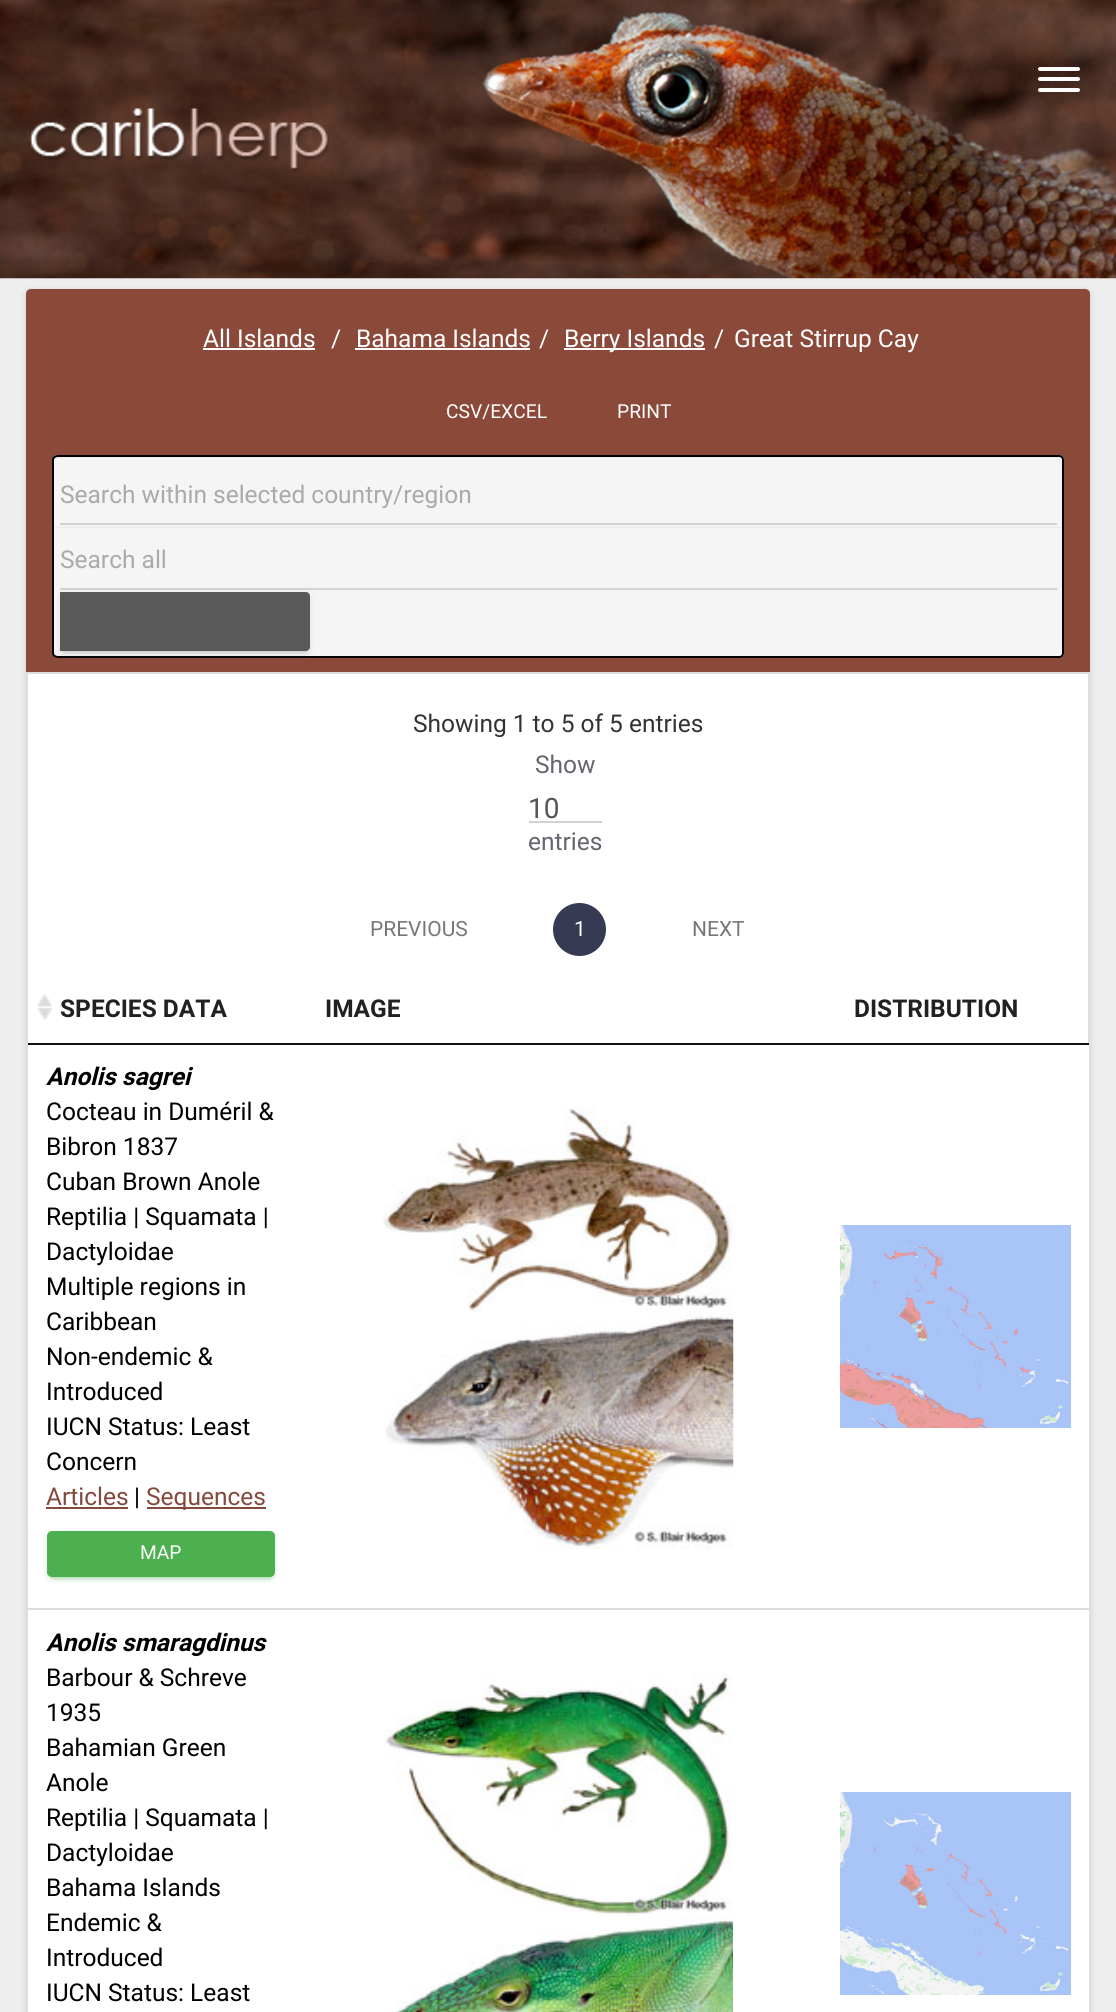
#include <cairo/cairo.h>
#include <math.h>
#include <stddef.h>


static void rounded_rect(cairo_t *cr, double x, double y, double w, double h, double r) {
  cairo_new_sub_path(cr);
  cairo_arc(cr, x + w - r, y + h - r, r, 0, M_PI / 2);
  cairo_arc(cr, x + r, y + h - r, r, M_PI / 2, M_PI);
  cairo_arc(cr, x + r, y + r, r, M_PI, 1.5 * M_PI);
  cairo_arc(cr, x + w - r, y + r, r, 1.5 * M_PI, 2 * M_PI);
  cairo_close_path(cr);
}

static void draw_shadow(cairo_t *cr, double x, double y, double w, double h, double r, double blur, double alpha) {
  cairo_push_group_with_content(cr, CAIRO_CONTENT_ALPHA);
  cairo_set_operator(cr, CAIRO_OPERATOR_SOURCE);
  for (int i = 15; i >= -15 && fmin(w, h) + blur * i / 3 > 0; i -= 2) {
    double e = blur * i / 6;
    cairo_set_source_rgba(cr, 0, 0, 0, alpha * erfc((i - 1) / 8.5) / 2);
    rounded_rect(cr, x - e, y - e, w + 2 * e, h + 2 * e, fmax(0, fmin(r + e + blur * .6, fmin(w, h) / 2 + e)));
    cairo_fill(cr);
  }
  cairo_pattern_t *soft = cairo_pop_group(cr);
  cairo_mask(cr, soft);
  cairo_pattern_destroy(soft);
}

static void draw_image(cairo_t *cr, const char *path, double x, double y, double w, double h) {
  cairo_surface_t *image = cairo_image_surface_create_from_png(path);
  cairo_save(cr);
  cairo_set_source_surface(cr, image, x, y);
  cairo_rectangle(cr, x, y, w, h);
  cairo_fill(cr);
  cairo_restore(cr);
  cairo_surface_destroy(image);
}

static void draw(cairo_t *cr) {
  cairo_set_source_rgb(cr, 238 / 255.0, 238 / 255.0, 238 / 255.0);
  cairo_paint(cr);
  draw_image(cr, "images/1.png", 0, 0, 1116, 279);
  cairo_set_source_rgb(cr, 1, 1, 1);
  rounded_rect(cr, 1038, 67, 42, 4, 2);
  cairo_fill(cr);
  rounded_rect(cr, 1038, 77, 42, 4, 2);
  cairo_fill(cr);
  rounded_rect(cr, 1038, 88, 42, 4, 2);
  cairo_fill(cr);
  draw_image(cr, "images/2.png", 29, 108, 301, 65);
  cairo_set_source_rgb(cr, 0, 0, 0);
  draw_shadow(cr, 26, 291, 1064, 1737, 5, 3.5, 0.14);
  cairo_set_source_rgb(cr, 1, 1, 1);
  cairo_new_path(cr);
  cairo_move_to(cr, 31, 289);
  cairo_line_to(cr, 1085, 289);
  cairo_curve_to(cr, 1088, 289, 1090, 291, 1090, 294);
  cairo_line_to(cr, 1090, 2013);
  cairo_line_to(cr, 26, 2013);
  cairo_line_to(cr, 26, 294);
  cairo_curve_to(cr, 26, 291, 28, 289, 31, 289);
  cairo_close_path(cr);
  cairo_fill(cr);
  cairo_set_source_rgb(cr, 139 / 255.0, 73 / 255.0, 58 / 255.0);
  cairo_new_path(cr);
  cairo_move_to(cr, 31, 289);
  cairo_line_to(cr, 1085, 289);
  cairo_curve_to(cr, 1088, 289, 1090, 291, 1090, 294);
  cairo_line_to(cr, 1090, 672);
  cairo_line_to(cr, 26, 672);
  cairo_line_to(cr, 26, 294);
  cairo_curve_to(cr, 26, 291, 28, 289, 31, 289);
  cairo_close_path(cr);
  cairo_fill(cr);
  cairo_set_source_rgb(cr, 1, 1, 1);
  cairo_rectangle(cr, 203, 348, 112, 2);
  cairo_fill(cr);
  cairo_rectangle(cr, 355, 348, 175, 2);
  cairo_fill(cr);
  cairo_rectangle(cr, 564, 348, 141, 2);
  cairo_fill(cr);
  cairo_set_source_rgb(cr, 245 / 255.0, 245 / 255.0, 245 / 255.0);
  cairo_new_path(cr);
  cairo_move_to(cr, 58, 455);
  cairo_line_to(cr, 1059, 455);
  cairo_curve_to(cr, 1062, 455, 1064, 457, 1064, 460);
  cairo_line_to(cr, 1064, 527);
  cairo_line_to(cr, 53, 527);
  cairo_line_to(cr, 53, 460);
  cairo_curve_to(cr, 53, 457, 55, 455, 58, 455);
  cairo_close_path(cr);
  cairo_fill(cr);
  cairo_set_source_rgb(cr, 233 / 255.0, 233 / 255.0, 233 / 255.0);
  cairo_new_path(cr);
  cairo_move_to(cr, 58, 458);
  cairo_line_to(cr, 1059, 458);
  cairo_curve_to(cr, 1061, 458, 1062, 460, 1062, 462);
  cairo_curve_to(cr, 1062, 459, 1061, 457, 1058, 457);
  cairo_line_to(cr, 58, 457);
  cairo_curve_to(cr, 55, 457, 54, 459, 54, 462);
  cairo_curve_to(cr, 54, 460, 56, 458, 58, 458);
  cairo_close_path(cr);
  cairo_fill(cr);
  cairo_set_source_rgb(cr, 0, 0, 0);
  cairo_set_fill_rule(cr, CAIRO_FILL_RULE_EVEN_ODD);
  cairo_new_path(cr);
  cairo_move_to(cr, 58, 455);
  cairo_line_to(cr, 1059, 455);
  cairo_curve_to(cr, 1062, 455, 1064, 457, 1064, 460);
  cairo_line_to(cr, 1064, 527);
  cairo_line_to(cr, 52, 527);
  cairo_line_to(cr, 52, 460);
  cairo_curve_to(cr, 52, 457, 55, 455, 58, 455);
  cairo_close_path(cr);
  cairo_move_to(cr, 58, 457);
  cairo_line_to(cr, 1059, 457);
  cairo_curve_to(cr, 1061, 457, 1062, 458, 1062, 460);
  cairo_line_to(cr, 1062, 527);
  cairo_line_to(cr, 54, 527);
  cairo_line_to(cr, 54, 460);
  cairo_curve_to(cr, 54, 458, 56, 457, 58, 457);
  cairo_close_path(cr);
  cairo_fill(cr);
  cairo_set_source_rgb(cr, 210 / 255.0, 210 / 255.0, 210 / 255.0);
  cairo_rectangle(cr, 60, 523, 997, 2);
  cairo_fill(cr);
  cairo_set_source_rgb(cr, 245 / 255.0, 245 / 255.0, 245 / 255.0);
  cairo_new_path(cr);
  cairo_move_to(cr, 53, 527);
  cairo_line_to(cr, 1064, 527);
  cairo_line_to(cr, 1064, 653);
  cairo_curve_to(cr, 1064, 656, 1062, 658, 1059, 658);
  cairo_line_to(cr, 58, 658);
  cairo_curve_to(cr, 55, 658, 53, 656, 53, 653);
  cairo_close_path(cr);
  cairo_fill(cr);
  cairo_set_source_rgb(cr, 233 / 255.0, 233 / 255.0, 233 / 255.0);
  cairo_rectangle(cr, 54, 527, 1008, 1);
  cairo_fill(cr);
  cairo_set_source_rgb(cr, 0, 0, 0);
  cairo_new_path(cr);
  cairo_move_to(cr, 52, 527);
  cairo_line_to(cr, 1064, 527);
  cairo_line_to(cr, 1064, 653);
  cairo_curve_to(cr, 1064, 656, 1062, 658, 1059, 658);
  cairo_line_to(cr, 58, 658);
  cairo_curve_to(cr, 55, 658, 52, 656, 52, 653);
  cairo_close_path(cr);
  cairo_move_to(cr, 54, 527);
  cairo_line_to(cr, 1062, 527);
  cairo_line_to(cr, 1062, 653);
  cairo_curve_to(cr, 1062, 655, 1061, 656, 1059, 656);
  cairo_line_to(cr, 58, 656);
  cairo_curve_to(cr, 56, 656, 54, 655, 54, 653);
  cairo_close_path(cr);
  cairo_fill(cr);
  cairo_set_source_rgb(cr, 210 / 255.0, 210 / 255.0, 210 / 255.0);
  cairo_rectangle(cr, 60, 588, 997, 2);
  cairo_fill(cr);
  cairo_set_source_rgb(cr, 153 / 255.0, 153 / 255.0, 153 / 255.0);
  draw_shadow(cr, 60, 593, 250, 60, 4, 4.5, 0.12);
  draw_shadow(cr, 63, 600, 243, 53, 0, 1, 0.2);
  draw_shadow(cr, 60, 595, 250, 60, 4, 2, 0.14);
  cairo_set_source_rgb(cr, 89 / 255.0, 89 / 255.0, 89 / 255.0);
  cairo_new_path(cr);
  cairo_move_to(cr, 60, 592);
  cairo_line_to(cr, 306, 592);
  cairo_curve_to(cr, 308, 592, 310, 594, 310, 596);
  cairo_line_to(cr, 310, 647);
  cairo_curve_to(cr, 310, 649, 308, 651, 306, 651);
  cairo_line_to(cr, 60, 651);
  cairo_close_path(cr);
  cairo_fill(cr);
  cairo_rectangle(cr, 27, 673, 1062, 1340);
  cairo_set_source_rgb(cr, 221 / 255.0, 221 / 255.0, 221 / 255.0);
  cairo_stroke(cr);
  cairo_set_source_rgb(cr, 210 / 255.0, 210 / 255.0, 210 / 255.0);
  cairo_rectangle(cr, 529, 821, 73, 2);
  cairo_fill(cr);
  cairo_set_source_rgb(cr, 54 / 255.0, 58 / 255.0, 82 / 255.0);
  cairo_arc(cr, 579.5, 929.5, 26.5, 0, 2 * M_PI);
  cairo_fill(cr);
  draw_image(cr, "images/3.png", 37, 994, 16, 27);
  cairo_set_source_rgb(cr, 17 / 255.0, 17 / 255.0, 17 / 255.0);
  cairo_rectangle(cr, 28, 1043, 1061, 2);
  cairo_fill(cr);
  cairo_set_source_rgb(cr, 1, 1, 1);
  cairo_rectangle(cr, 1088, 1045, 1, 563);
  cairo_fill(cr);
  cairo_set_source_rgb(cr, 132 / 255.0, 73 / 255.0, 60 / 255.0);
  cairo_rectangle(cr, 46, 1507, 82, 2);
  cairo_fill(cr);
  cairo_rectangle(cr, 147, 1507, 119, 2);
  cairo_fill(cr);
  cairo_set_source_rgb(cr, 76 / 255.0, 175 / 255.0, 80 / 255.0);
  draw_shadow(cr, 47, 1533, 228, 46, 5, 4.5, 0.12);
  draw_shadow(cr, 51, 1540, 220, 39, 2, 1, 0.2);
  draw_shadow(cr, 47, 1535, 228, 45, 5, 2, 0.14);
  cairo_set_source_rgb(cr, 76 / 255.0, 175 / 255.0, 80 / 255.0);
  rounded_rect(cr, 47, 1531, 228, 46, 5);
  cairo_fill(cr);
  draw_image(cr, "images/4.png", 383, 1106, 350, 207);
  draw_image(cr, "images/5.png", 383, 1312, 351, 237);
  draw_image(cr, "images/6.png", 840, 1225, 231, 203);
  cairo_set_source_rgb(cr, 1, 1, 1);
  cairo_rectangle(cr, 1088, 1610, 1, 402);
  cairo_fill(cr);
  cairo_set_source_rgb(cr, 221 / 255.0, 221 / 255.0, 221 / 255.0);
  cairo_rectangle(cr, 28, 1608, 1061, 2);
  cairo_fill(cr);
  draw_image(cr, "images/7.png", 383, 1673, 350, 243);
  draw_image(cr, "images/8.png", 396, 1917, 337, 95);
  draw_image(cr, "images/9.png", 840, 1792, 231, 203);
  cairo_select_font_face(cr, "Roboto", CAIRO_FONT_SLANT_NORMAL, CAIRO_FONT_WEIGHT_NORMAL);
  cairo_set_font_size(cr, 24.5);
  cairo_set_source_rgb(cr, 1, 1, 1);
  cairo_move_to(cr, 203, 347);
  cairo_show_text(cr, "All Islands");
  cairo_move_to(cr, 331, 347);
  cairo_show_text(cr, "/");
  cairo_move_to(cr, 356, 347);
  cairo_show_text(cr, "Bahama Islands");
  cairo_move_to(cr, 539, 347);
  cairo_show_text(cr, "/");
  cairo_move_to(cr, 564, 347);
  cairo_show_text(cr, "Berry Islands");
  cairo_move_to(cr, 714, 347);
  cairo_show_text(cr, "/");
  cairo_move_to(cr, 734, 347);
  cairo_show_text(cr, "Great Stirrup Cay");
  cairo_set_font_size(cr, 19.25);
  cairo_move_to(cr, 446, 418);
  cairo_show_text(cr, "CSV/EXCEL");
  cairo_move_to(cr, 617, 418);
  cairo_show_text(cr, "PRINT");
  cairo_set_font_size(cr, 24.5);
  cairo_set_source_rgb(cr, 170 / 255.0, 170 / 255.0, 170 / 255.0);
  cairo_move_to(cr, 60, 503);
  cairo_show_text(cr, "Search within selected country/region");
  cairo_move_to(cr, 60, 568);
  cairo_show_text(cr, "Search all");
  cairo_set_source_rgb(cr, 51 / 255.0, 51 / 255.0, 51 / 255.0);
  cairo_move_to(cr, 413, 732);
  cairo_show_text(cr, "Showing 1 to 5 of 5 entries");
  cairo_set_source_rgb(cr, 101 / 255.0, 102 / 255.0, 110 / 255.0);
  cairo_move_to(cr, 535, 773);
  cairo_show_text(cr, "Show");
  cairo_set_font_size(cr, 28);
  cairo_set_source_rgb(cr, 85 / 255.0, 85 / 255.0, 85 / 255.0);
  cairo_move_to(cr, 528, 818);
  cairo_show_text(cr, "10");
  cairo_set_font_size(cr, 24.5);
  cairo_set_source_rgb(cr, 101 / 255.0, 102 / 255.0, 110 / 255.0);
  cairo_move_to(cr, 528, 850);
  cairo_show_text(cr, "entries");
  cairo_set_font_size(cr, 21);
  cairo_set_source_rgb(cr, 119 / 255.0, 119 / 255.0, 119 / 255.0);
  cairo_move_to(cr, 370, 936);
  cairo_show_text(cr, "PREVIOUS");
  cairo_set_source_rgb(cr, 1, 1, 1);
  cairo_move_to(cr, 574, 936);
  cairo_show_text(cr, "1");
  cairo_set_source_rgb(cr, 119 / 255.0, 119 / 255.0, 119 / 255.0);
  cairo_move_to(cr, 692, 936);
  cairo_show_text(cr, "NEXT");
  cairo_select_font_face(cr, "Roboto", CAIRO_FONT_SLANT_NORMAL, CAIRO_FONT_WEIGHT_BOLD);
  cairo_set_font_size(cr, 24.5);
  cairo_set_source_rgb(cr, 33 / 255.0, 33 / 255.0, 33 / 255.0);
  cairo_move_to(cr, 60, 1017);
  cairo_show_text(cr, "SPECIES DATA");
  cairo_move_to(cr, 325, 1017);
  cairo_show_text(cr, "IMAGE");
  cairo_move_to(cr, 854, 1017);
  cairo_show_text(cr, "DISTRIBUTION");
  cairo_select_font_face(cr, "Roboto", CAIRO_FONT_SLANT_ITALIC, CAIRO_FONT_WEIGHT_BOLD);
  cairo_set_source_rgb(cr, 0, 0, 0);
  cairo_move_to(cr, 46, 1085);
  cairo_show_text(cr, "Anolis sagrei");
  cairo_select_font_face(cr, "Roboto", CAIRO_FONT_SLANT_NORMAL, CAIRO_FONT_WEIGHT_NORMAL);
  cairo_move_to(cr, 46, 1120);
  cairo_show_text(cr, "Cocteau in Duméril &");
  cairo_move_to(cr, 46, 1155);
  cairo_show_text(cr, "Bibron 1837");
  cairo_move_to(cr, 46, 1190);
  cairo_show_text(cr, "Cuban Brown Anole");
  cairo_move_to(cr, 46, 1225);
  cairo_show_text(cr, "Reptilia | Squamata |");
  cairo_move_to(cr, 46, 1260);
  cairo_show_text(cr, "Dactyloidae");
  cairo_move_to(cr, 46, 1295);
  cairo_show_text(cr, "Multiple regions in");
  cairo_move_to(cr, 46, 1330);
  cairo_show_text(cr, "Caribbean");
  cairo_move_to(cr, 46, 1365);
  cairo_show_text(cr, "Non-endemic &");
  cairo_move_to(cr, 46, 1400);
  cairo_show_text(cr, "Introduced");
  cairo_move_to(cr, 46, 1435);
  cairo_show_text(cr, "IUCN Status: Least");
  cairo_move_to(cr, 46, 1470);
  cairo_show_text(cr, "Concern");
  cairo_set_source_rgb(cr, 132 / 255.0, 73 / 255.0, 60 / 255.0);
  cairo_move_to(cr, 46, 1505);
  cairo_show_text(cr, "Articles");
  cairo_set_source_rgb(cr, 0, 0, 0);
  cairo_move_to(cr, 134, 1505);
  cairo_show_text(cr, "|");
  cairo_set_source_rgb(cr, 132 / 255.0, 73 / 255.0, 60 / 255.0);
  cairo_move_to(cr, 146, 1505);
  cairo_show_text(cr, "Sequences");
  cairo_set_font_size(cr, 19.25);
  cairo_set_source_rgb(cr, 1, 1, 1);
  cairo_move_to(cr, 140, 1559);
  cairo_show_text(cr, "MAP");
  cairo_select_font_face(cr, "Roboto", CAIRO_FONT_SLANT_ITALIC, CAIRO_FONT_WEIGHT_BOLD);
  cairo_set_font_size(cr, 24.5);
  cairo_set_source_rgb(cr, 0, 0, 0);
  cairo_move_to(cr, 46, 1651);
  cairo_show_text(cr, "Anolis smaragdinus");
  cairo_select_font_face(cr, "Roboto", CAIRO_FONT_SLANT_NORMAL, CAIRO_FONT_WEIGHT_NORMAL);
  cairo_move_to(cr, 46, 1686);
  cairo_show_text(cr, "Barbour & Schreve");
  cairo_move_to(cr, 46, 1721);
  cairo_show_text(cr, "1935");
  cairo_move_to(cr, 46, 1756);
  cairo_show_text(cr, "Bahamian Green");
  cairo_move_to(cr, 46, 1791);
  cairo_show_text(cr, "Anole");
  cairo_move_to(cr, 46, 1826);
  cairo_show_text(cr, "Reptilia | Squamata |");
  cairo_move_to(cr, 46, 1861);
  cairo_show_text(cr, "Dactyloidae");
  cairo_move_to(cr, 46, 1896);
  cairo_show_text(cr, "Bahama Islands");
  cairo_move_to(cr, 46, 1931);
  cairo_show_text(cr, "Endemic &");
  cairo_move_to(cr, 46, 1966);
  cairo_show_text(cr, "Introduced");
  cairo_move_to(cr, 46, 2001);
  cairo_show_text(cr, "IUCN Status: Least");
}

int main(void) {
  cairo_surface_t *surface = cairo_image_surface_create(CAIRO_FORMAT_RGB24, 1116, 2012);
  cairo_t *cr = cairo_create(surface);
  cairo_font_options_t *options = cairo_font_options_create();
  cairo_font_options_set_hint_metrics(options, CAIRO_HINT_METRICS_OFF);
  cairo_font_options_set_hint_style(options, CAIRO_HINT_STYLE_NONE);
  cairo_set_font_options(cr, options);
  cairo_set_miter_limit(cr, 4);
  draw(cr);
  cairo_surface_write_to_png(surface, "out.png");
  cairo_font_options_destroy(options);
  cairo_destroy(cr);
  cairo_surface_destroy(surface);
  return 0;
}
